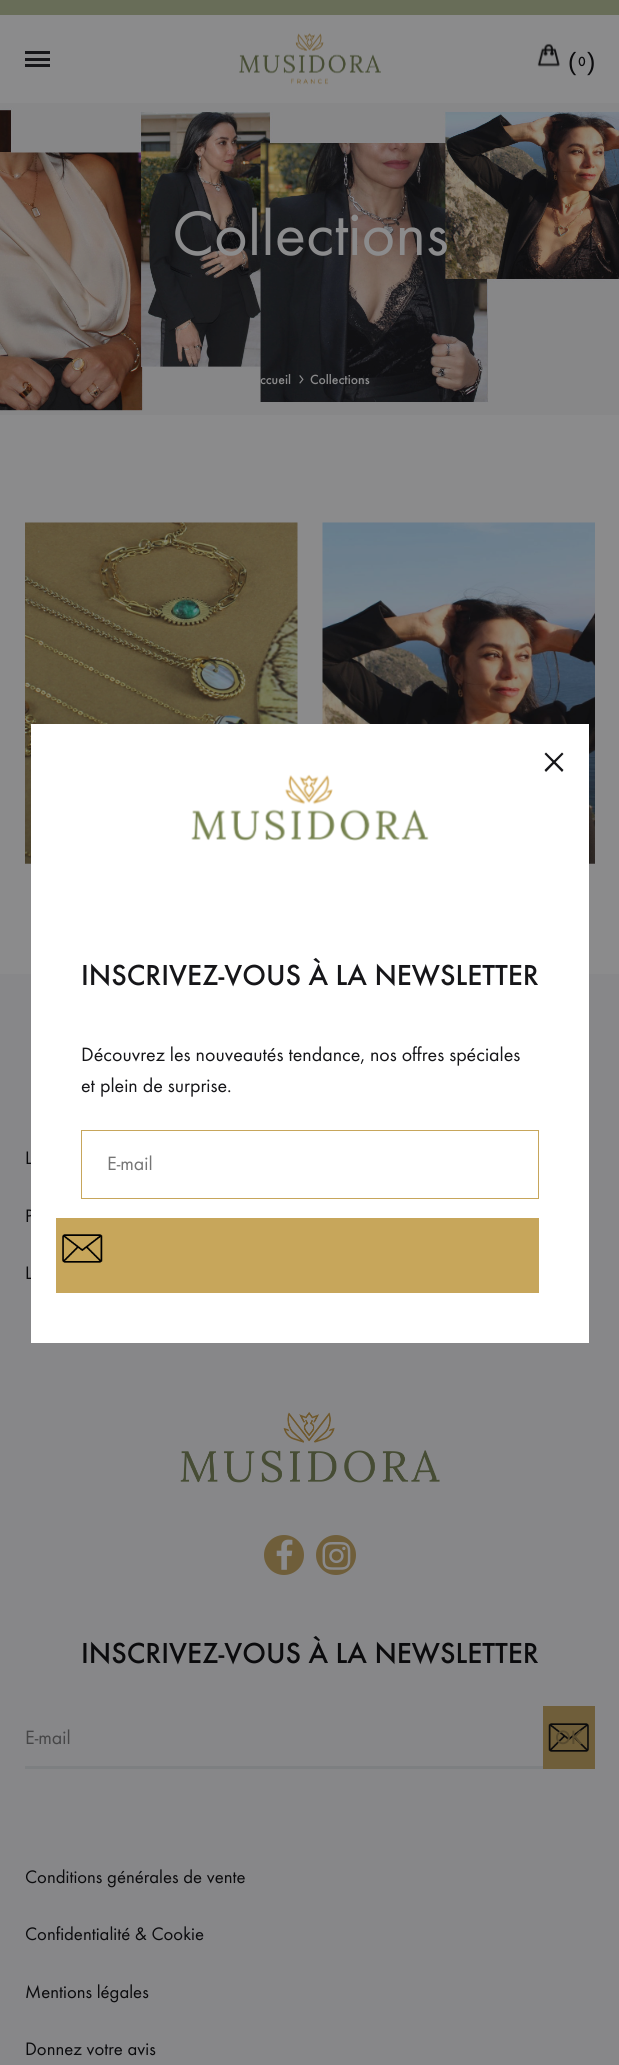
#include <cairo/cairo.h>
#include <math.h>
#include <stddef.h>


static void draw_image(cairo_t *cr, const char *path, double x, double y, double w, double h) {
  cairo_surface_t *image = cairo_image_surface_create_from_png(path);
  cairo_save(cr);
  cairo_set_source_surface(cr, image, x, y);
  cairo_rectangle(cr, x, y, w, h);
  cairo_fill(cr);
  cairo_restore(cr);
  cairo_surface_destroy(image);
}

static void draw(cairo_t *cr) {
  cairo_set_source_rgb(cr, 139 / 255.0, 139 / 255.0, 140 / 255.0);
  cairo_paint(cr);
  cairo_set_source_rgb(cr, 104 / 255.0, 109 / 255.0, 88 / 255.0);
  cairo_rectangle(cr, 0, 0, 619, 15);
  cairo_fill(cr);
  cairo_set_source_rgb(cr, 22 / 255.0, 22 / 255.0, 25 / 255.0);
  cairo_rectangle(cr, 25, 58, 25, 3);
  cairo_fill(cr);
  cairo_rectangle(cr, 25, 51, 25, 3);
  cairo_fill(cr);
  cairo_rectangle(cr, 25, 64, 25, 3);
  cairo_fill(cr);
  draw_image(cr, "images/1.png", 239, 33, 142, 52);
  draw_image(cr, "images/2.png", 537, 43, 23, 24);
  draw_image(cr, "images/3.png", 0, 103, 619, 312);
  draw_image(cr, "images/4.png", 299, 375, 5, 9);
  draw_image(cr, "images/5.png", 25, 522, 273, 342);
  draw_image(cr, "images/6.png", 322, 522, 273, 342);
  cairo_set_source_rgb(cr, 135 / 255.0, 135 / 255.0, 137 / 255.0);
  cairo_rectangle(cr, 0, 974, 619, 1091);
  cairo_fill(cr);
  draw_image(cr, "images/7.png", 180, 1412, 260, 71);
  cairo_set_source_rgb(cr, 111 / 255.0, 94 / 255.0, 58 / 255.0);
  cairo_arc(cr, 284, 1555, 20, 0, 2 * M_PI);
  cairo_fill(cr);
  draw_image(cr, "images/8.png", 276, 1539, 17, 31);
  cairo_arc(cr, 336, 1555, 20, 0, 2 * M_PI);
  cairo_fill(cr);
  draw_image(cr, "images/9.png", 322, 1542, 29, 28);
  cairo_set_source_rgb(cr, 125 / 255.0, 127 / 255.0, 129 / 255.0);
  cairo_rectangle(cr, 25, 1766, 518, 3);
  cairo_fill(cr);
  cairo_set_source_rgb(cr, 111 / 255.0, 94 / 255.0, 58 / 255.0);
  cairo_rectangle(cr, 543, 1706, 52, 63);
  cairo_fill(cr);
  draw_image(cr, "images/10.png", 548, 1723, 41, 29);
  cairo_select_font_face(cr, "Liberation Sans", CAIRO_FONT_SLANT_NORMAL, CAIRO_FONT_WEIGHT_NORMAL);
  cairo_set_font_size(cr, 25);
  cairo_set_source_rgb(cr, 11 / 255.0, 11 / 255.0, 13 / 255.0);
  cairo_move_to(cr, 568, 70);
  cairo_show_text(cr, "(");
  cairo_select_font_face(cr, "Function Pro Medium", CAIRO_FONT_SLANT_NORMAL, CAIRO_FONT_WEIGHT_NORMAL);
  cairo_set_font_size(cr, 13.75);
  cairo_move_to(cr, 578, 66);
  cairo_show_text(cr, "0");
  cairo_select_font_face(cr, "Liberation Sans", CAIRO_FONT_SLANT_NORMAL, CAIRO_FONT_WEIGHT_NORMAL);
  cairo_set_font_size(cr, 25);
  cairo_move_to(cr, 587, 70);
  cairo_show_text(cr, ")");
  cairo_select_font_face(cr, "Function Pro", CAIRO_FONT_SLANT_NORMAL, CAIRO_FONT_WEIGHT_NORMAL);
  cairo_set_font_size(cr, 65);
  cairo_set_source_rgb(cr, 139 / 255.0, 139 / 255.0, 140 / 255.0);
  cairo_move_to(cr, 172, 255);
  cairo_show_text(cr, "Collections");
  cairo_select_font_face(cr, "Function Pro Medium", CAIRO_FONT_SLANT_NORMAL, CAIRO_FONT_WEIGHT_NORMAL);
  cairo_set_font_size(cr, 13.75);
  cairo_move_to(cr, 260, 384);
  cairo_show_text(cr, "ccueil");
  cairo_move_to(cr, 310, 384);
  cairo_show_text(cr, "Collections");
  cairo_select_font_face(cr, "Function Pro", CAIRO_FONT_SLANT_NORMAL, CAIRO_FONT_WEIGHT_NORMAL);
  cairo_set_font_size(cr, 18.75);
  cairo_set_source_rgb(cr, 11 / 255.0, 11 / 255.0, 13 / 255.0);
  cairo_move_to(cr, 25, 1164);
  cairo_show_text(cr, "L");
  cairo_move_to(cr, 25, 1222);
  cairo_show_text(cr, "P");
  cairo_move_to(cr, 25, 1279);
  cairo_show_text(cr, "L");
  cairo_select_font_face(cr, "Function Pro Medium", CAIRO_FONT_SLANT_NORMAL, CAIRO_FONT_WEIGHT_NORMAL);
  cairo_set_font_size(cr, 30);
  cairo_move_to(cr, 81, 1663);
  cairo_show_text(cr, "INSCRIVEZ-VOUS À LA NEWSLETTER");
  cairo_select_font_face(cr, "Function Pro", CAIRO_FONT_SLANT_NORMAL, CAIRO_FONT_WEIGHT_NORMAL);
  cairo_set_font_size(cr, 20);
  cairo_set_source_rgb(cr, 70 / 255.0, 70 / 255.0, 71 / 255.0);
  cairo_move_to(cr, 25, 1744);
  cairo_show_text(cr, "E-mail");
  cairo_select_font_face(cr, "Function Pro Medium", CAIRO_FONT_SLANT_NORMAL, CAIRO_FONT_WEIGHT_NORMAL);
  cairo_set_source_rgb(cr, 87 / 255.0, 74 / 255.0, 47 / 255.0);
  cairo_move_to(cr, 555, 1744);
  cairo_show_text(cr, "OK");
  cairo_select_font_face(cr, "Function Pro", CAIRO_FONT_SLANT_NORMAL, CAIRO_FONT_WEIGHT_NORMAL);
  cairo_set_font_size(cr, 18.75);
  cairo_set_source_rgb(cr, 11 / 255.0, 11 / 255.0, 13 / 255.0);
  cairo_move_to(cr, 25, 1883);
  cairo_show_text(cr, "Conditions générales de vente");
  cairo_move_to(cr, 25, 1940);
  cairo_show_text(cr, "Confidentialité & Cookie");
  cairo_move_to(cr, 25, 1998);
  cairo_show_text(cr, "Mentions légales");
  cairo_move_to(cr, 25, 2055);
  cairo_show_text(cr, "Donnez votre avis");
  cairo_set_source_rgb(cr, 1, 1, 1);
  cairo_rectangle(cr, 31, 724, 558, 619);
  cairo_fill(cr);
  cairo_set_source_rgb(cr, 22 / 255.0, 22 / 255.0, 25 / 255.0);
  cairo_new_path(cr);
  cairo_move_to(cr, 546, 752.5);
  cairo_line_to(cr, 563.5, 770);
  cairo_line_to(cr, 562, 772);
  cairo_line_to(cr, 544.5, 754);
  cairo_close_path(cr);
  cairo_fill(cr);
  cairo_new_path(cr);
  cairo_move_to(cr, 544.5, 770);
  cairo_line_to(cr, 562, 752.5);
  cairo_line_to(cr, 563.5, 754);
  cairo_line_to(cr, 546, 772);
  cairo_close_path(cr);
  cairo_fill(cr);
  draw_image(cr, "images/11.png", 191, 774, 238, 67);
  cairo_select_font_face(cr, "Function Pro Medium", CAIRO_FONT_SLANT_NORMAL, CAIRO_FONT_WEIGHT_NORMAL);
  cairo_set_font_size(cr, 30);
  cairo_move_to(cr, 81, 985);
  cairo_show_text(cr, "INSCRIVEZ-VOUS À LA NEWSLETTER");
  cairo_select_font_face(cr, "Function Pro", CAIRO_FONT_SLANT_NORMAL, CAIRO_FONT_WEIGHT_NORMAL);
  cairo_set_font_size(cr, 20);
  cairo_move_to(cr, 81, 1061);
  cairo_show_text(cr, "Découvrez les nouveautés tendance, nos offres spéciales");
  cairo_move_to(cr, 81, 1092);
  cairo_show_text(cr, "et plein de surprise.");
  cairo_rectangle(cr, 81.5, 1130.5, 457, 68);
  cairo_set_source_rgb(cr, 199 / 255.0, 166 / 255.0, 91 / 255.0);
  cairo_set_line_width(cr, 1);
  cairo_stroke(cr);
  cairo_set_source_rgb(cr, 117 / 255.0, 117 / 255.0, 117 / 255.0);
  cairo_move_to(cr, 107, 1170);
  cairo_show_text(cr, "E-mail");
  cairo_set_source_rgb(cr, 199 / 255.0, 166 / 255.0, 91 / 255.0);
  cairo_rectangle(cr, 56, 1218, 483, 75);
  cairo_fill(cr);
  draw_image(cr, "images/12.png", 62, 1234, 41, 29);
}

int main(void) {
  cairo_surface_t *surface = cairo_image_surface_create(CAIRO_FORMAT_RGB24, 619, 2065);
  cairo_t *cr = cairo_create(surface);
  cairo_font_options_t *options = cairo_font_options_create();
  cairo_font_options_set_hint_metrics(options, CAIRO_HINT_METRICS_OFF);
  cairo_font_options_set_hint_style(options, CAIRO_HINT_STYLE_NONE);
  cairo_set_font_options(cr, options);
  cairo_set_miter_limit(cr, 4);
  draw(cr);
  cairo_surface_write_to_png(surface, "out.png");
  cairo_font_options_destroy(options);
  cairo_destroy(cr);
  cairo_surface_destroy(surface);
  return 0;
}
